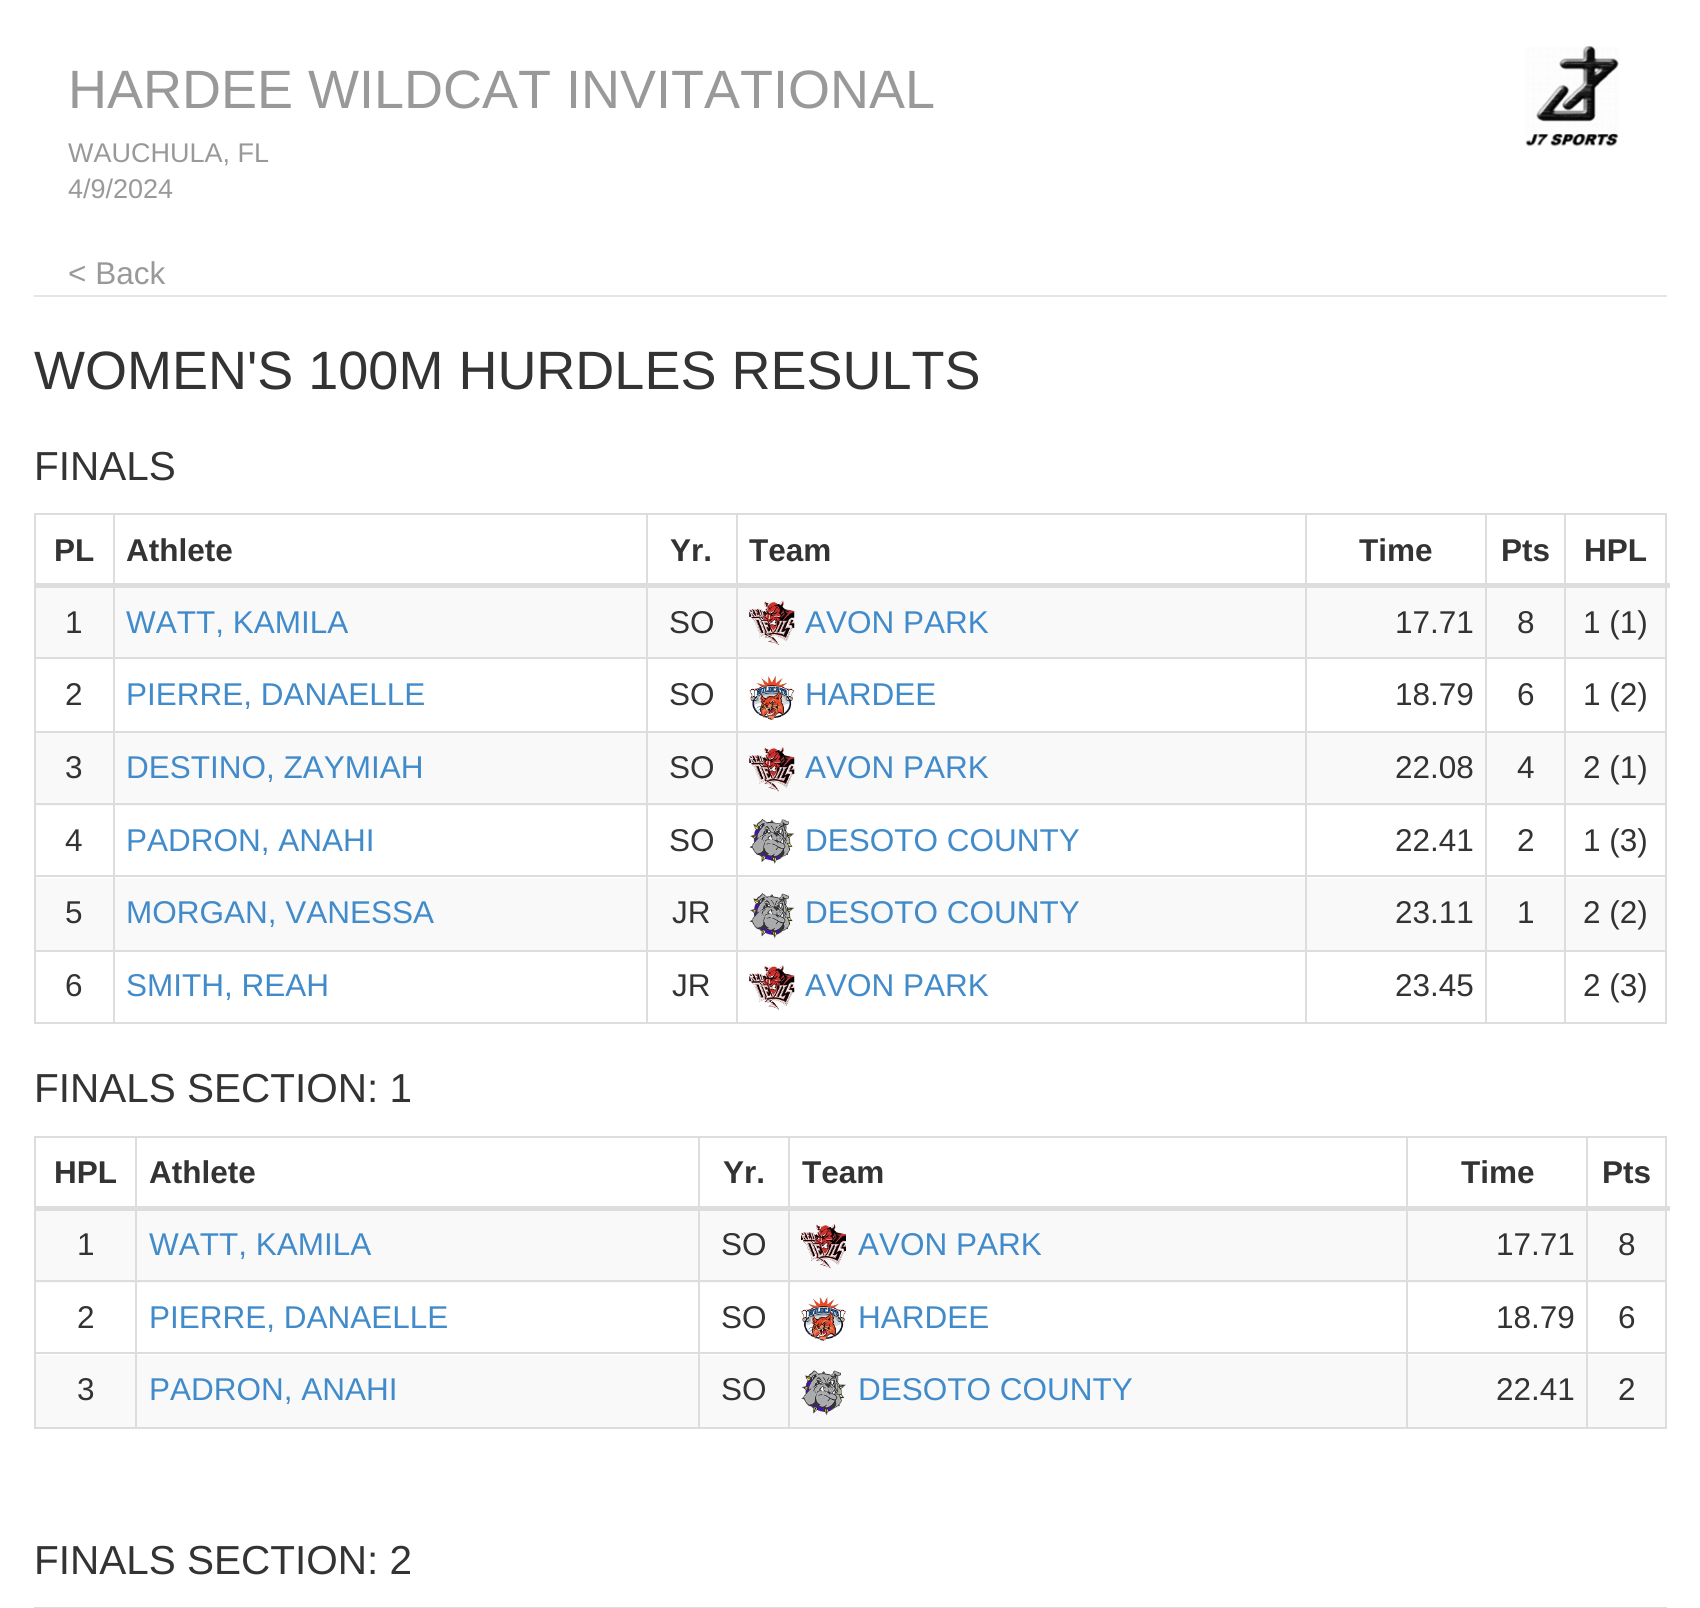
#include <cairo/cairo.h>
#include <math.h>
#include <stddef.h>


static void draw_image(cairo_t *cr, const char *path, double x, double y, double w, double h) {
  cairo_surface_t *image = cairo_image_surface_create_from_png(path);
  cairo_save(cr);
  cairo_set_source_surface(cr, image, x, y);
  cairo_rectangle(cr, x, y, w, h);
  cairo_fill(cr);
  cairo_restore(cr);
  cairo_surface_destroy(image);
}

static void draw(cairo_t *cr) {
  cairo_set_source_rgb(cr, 1, 1, 1);
  cairo_paint(cr);
  cairo_set_source_rgb(cr, 229 / 255.0, 229 / 255.0, 229 / 255.0);
  cairo_rectangle(cr, 34, 295, 1633, 2);
  cairo_fill(cr);
  draw_image(cr, "images/1.png", 1525, 46, 94, 101);
  cairo_set_source_rgb(cr, 221 / 255.0, 221 / 255.0, 221 / 255.0);
  cairo_rectangle(cr, 34, 513, 1633, 2);
  cairo_fill(cr);
  cairo_rectangle(cr, 1665, 513, 2, 511);
  cairo_fill(cr);
  cairo_rectangle(cr, 34, 1022, 1633, 2);
  cairo_fill(cr);
  cairo_rectangle(cr, 34, 513, 2, 511);
  cairo_fill(cr);
  cairo_rectangle(cr, 1564, 657, 103, 2);
  cairo_fill(cr);
  cairo_rectangle(cr, 1564, 731, 103, 2);
  cairo_fill(cr);
  cairo_set_source_rgb(cr, 249 / 255.0, 249 / 255.0, 249 / 255.0);
  cairo_rectangle(cr, 1487, 733, 77, 73);
  cairo_fill(cr);
  cairo_rectangle(cr, 1566, 733, 99, 73);
  cairo_fill(cr);
  cairo_set_source_rgb(cr, 221 / 255.0, 221 / 255.0, 221 / 255.0);
  cairo_rectangle(cr, 1564, 803, 103, 2);
  cairo_fill(cr);
  cairo_rectangle(cr, 1564, 875, 103, 2);
  cairo_fill(cr);
  cairo_rectangle(cr, 1564, 950, 103, 2);
  cairo_fill(cr);
  cairo_rectangle(cr, 1564, 950, 2, 74);
  cairo_fill(cr);
  cairo_rectangle(cr, 1485, 950, 81, 2);
  cairo_fill(cr);
  cairo_rectangle(cr, 1564, 875, 2, 77);
  cairo_fill(cr);
  cairo_rectangle(cr, 1485, 875, 81, 2);
  cairo_fill(cr);
  cairo_rectangle(cr, 1564, 803, 2, 75);
  cairo_fill(cr);
  cairo_rectangle(cr, 1485, 803, 81, 2);
  cairo_fill(cr);
  cairo_rectangle(cr, 1564, 731, 2, 75);
  cairo_fill(cr);
  cairo_rectangle(cr, 1485, 731, 81, 2);
  cairo_fill(cr);
  cairo_rectangle(cr, 1564, 657, 2, 77);
  cairo_fill(cr);
  cairo_rectangle(cr, 1485, 657, 81, 2);
  cairo_fill(cr);
  cairo_set_source_rgb(cr, 249 / 255.0, 249 / 255.0, 249 / 255.0);
  cairo_rectangle(cr, 1307, 733, 178, 73);
  cairo_fill(cr);
  cairo_set_source_rgb(cr, 221 / 255.0, 221 / 255.0, 221 / 255.0);
  cairo_rectangle(cr, 1485, 950, 2, 74);
  cairo_fill(cr);
  cairo_rectangle(cr, 1305, 950, 182, 2);
  cairo_fill(cr);
  cairo_rectangle(cr, 1485, 875, 2, 77);
  cairo_fill(cr);
  cairo_rectangle(cr, 1305, 875, 182, 2);
  cairo_fill(cr);
  cairo_rectangle(cr, 1485, 803, 2, 75);
  cairo_fill(cr);
  cairo_rectangle(cr, 1305, 803, 182, 2);
  cairo_fill(cr);
  cairo_rectangle(cr, 1485, 731, 2, 75);
  cairo_fill(cr);
  cairo_rectangle(cr, 1305, 731, 182, 2);
  cairo_fill(cr);
  cairo_rectangle(cr, 1485, 657, 2, 77);
  cairo_fill(cr);
  cairo_rectangle(cr, 1305, 657, 182, 2);
  cairo_fill(cr);
  cairo_set_source_rgb(cr, 249 / 255.0, 249 / 255.0, 249 / 255.0);
  cairo_rectangle(cr, 738, 733, 567, 73);
  cairo_fill(cr);
  cairo_set_source_rgb(cr, 221 / 255.0, 221 / 255.0, 221 / 255.0);
  cairo_rectangle(cr, 1305, 950, 2, 74);
  cairo_fill(cr);
  cairo_rectangle(cr, 736, 950, 571, 2);
  cairo_fill(cr);
  cairo_rectangle(cr, 1305, 875, 2, 77);
  cairo_fill(cr);
  cairo_rectangle(cr, 736, 875, 571, 2);
  cairo_fill(cr);
  cairo_rectangle(cr, 1305, 803, 2, 75);
  cairo_fill(cr);
  cairo_rectangle(cr, 736, 803, 571, 2);
  cairo_fill(cr);
  cairo_rectangle(cr, 1305, 731, 2, 75);
  cairo_fill(cr);
  cairo_rectangle(cr, 736, 731, 571, 2);
  cairo_fill(cr);
  cairo_rectangle(cr, 1305, 657, 2, 77);
  cairo_fill(cr);
  cairo_rectangle(cr, 736, 657, 571, 2);
  cairo_fill(cr);
  cairo_set_source_rgb(cr, 249 / 255.0, 249 / 255.0, 249 / 255.0);
  cairo_rectangle(cr, 648, 733, 88, 73);
  cairo_fill(cr);
  cairo_set_source_rgb(cr, 221 / 255.0, 221 / 255.0, 221 / 255.0);
  cairo_rectangle(cr, 736, 950, 2, 74);
  cairo_fill(cr);
  cairo_rectangle(cr, 646, 950, 92, 2);
  cairo_fill(cr);
  cairo_rectangle(cr, 736, 875, 2, 77);
  cairo_fill(cr);
  cairo_rectangle(cr, 646, 875, 92, 2);
  cairo_fill(cr);
  cairo_rectangle(cr, 736, 803, 2, 75);
  cairo_fill(cr);
  cairo_rectangle(cr, 646, 803, 92, 2);
  cairo_fill(cr);
  cairo_rectangle(cr, 736, 731, 2, 75);
  cairo_fill(cr);
  cairo_rectangle(cr, 646, 731, 92, 2);
  cairo_fill(cr);
  cairo_rectangle(cr, 736, 657, 2, 77);
  cairo_fill(cr);
  cairo_rectangle(cr, 646, 657, 92, 2);
  cairo_fill(cr);
  cairo_set_source_rgb(cr, 249 / 255.0, 249 / 255.0, 249 / 255.0);
  cairo_rectangle(cr, 115, 733, 531, 73);
  cairo_fill(cr);
  cairo_set_source_rgb(cr, 221 / 255.0, 221 / 255.0, 221 / 255.0);
  cairo_rectangle(cr, 646, 950, 2, 74);
  cairo_fill(cr);
  cairo_rectangle(cr, 113, 950, 535, 2);
  cairo_fill(cr);
  cairo_rectangle(cr, 646, 875, 2, 77);
  cairo_fill(cr);
  cairo_rectangle(cr, 113, 875, 535, 2);
  cairo_fill(cr);
  cairo_rectangle(cr, 646, 803, 2, 75);
  cairo_fill(cr);
  cairo_rectangle(cr, 113, 803, 535, 2);
  cairo_fill(cr);
  cairo_rectangle(cr, 646, 731, 2, 75);
  cairo_fill(cr);
  cairo_rectangle(cr, 113, 731, 535, 2);
  cairo_fill(cr);
  cairo_rectangle(cr, 646, 657, 2, 77);
  cairo_fill(cr);
  cairo_rectangle(cr, 113, 657, 535, 2);
  cairo_fill(cr);
  cairo_set_source_rgb(cr, 249 / 255.0, 249 / 255.0, 249 / 255.0);
  cairo_rectangle(cr, 36, 733, 77, 73);
  cairo_fill(cr);
  cairo_set_source_rgb(cr, 221 / 255.0, 221 / 255.0, 221 / 255.0);
  cairo_rectangle(cr, 113, 950, 2, 74);
  cairo_fill(cr);
  cairo_rectangle(cr, 34, 950, 81, 2);
  cairo_fill(cr);
  cairo_rectangle(cr, 113, 875, 2, 77);
  cairo_fill(cr);
  cairo_rectangle(cr, 34, 875, 81, 2);
  cairo_fill(cr);
  cairo_rectangle(cr, 113, 803, 2, 75);
  cairo_fill(cr);
  cairo_rectangle(cr, 34, 803, 81, 2);
  cairo_fill(cr);
  cairo_rectangle(cr, 113, 731, 2, 75);
  cairo_fill(cr);
  cairo_rectangle(cr, 34, 731, 81, 2);
  cairo_fill(cr);
  cairo_rectangle(cr, 113, 657, 2, 77);
  cairo_fill(cr);
  cairo_rectangle(cr, 34, 657, 81, 2);
  cairo_fill(cr);
  cairo_rectangle(cr, 113, 513, 2, 146);
  cairo_fill(cr);
  cairo_rectangle(cr, 646, 513, 2, 146);
  cairo_fill(cr);
  cairo_rectangle(cr, 736, 513, 2, 146);
  cairo_fill(cr);
  cairo_rectangle(cr, 1305, 513, 2, 146);
  cairo_fill(cr);
  cairo_rectangle(cr, 1485, 513, 2, 146);
  cairo_fill(cr);
  cairo_rectangle(cr, 1564, 513, 2, 146);
  cairo_fill(cr);
  cairo_rectangle(cr, 34, 583, 1636, 5);
  cairo_fill(cr);
  cairo_set_source_rgb(cr, 249 / 255.0, 249 / 255.0, 249 / 255.0);
  cairo_rectangle(cr, 36, 588, 77, 69);
  cairo_fill(cr);
  cairo_rectangle(cr, 115, 588, 531, 69);
  cairo_fill(cr);
  cairo_rectangle(cr, 648, 588, 88, 69);
  cairo_fill(cr);
  cairo_rectangle(cr, 738, 588, 567, 69);
  cairo_fill(cr);
  draw_image(cr, "images/2.png", 749, 600, 46, 45);
  cairo_rectangle(cr, 1307, 588, 178, 69);
  cairo_fill(cr);
  cairo_rectangle(cr, 1487, 588, 77, 69);
  cairo_fill(cr);
  cairo_rectangle(cr, 1566, 588, 99, 69);
  cairo_fill(cr);
  draw_image(cr, "images/3.png", 749, 675, 46, 45);
  draw_image(cr, "images/4.png", 749, 747, 46, 45);
  draw_image(cr, "images/5.png", 749, 819, 46, 45);
  cairo_rectangle(cr, 36, 878, 77, 72);
  cairo_fill(cr);
  cairo_rectangle(cr, 115, 878, 531, 72);
  cairo_fill(cr);
  cairo_rectangle(cr, 648, 878, 88, 72);
  cairo_fill(cr);
  cairo_rectangle(cr, 738, 878, 567, 72);
  cairo_fill(cr);
  draw_image(cr, "images/6.png", 749, 893, 46, 46);
  cairo_rectangle(cr, 1307, 878, 178, 72);
  cairo_fill(cr);
  cairo_rectangle(cr, 1487, 878, 77, 72);
  cairo_fill(cr);
  cairo_rectangle(cr, 1566, 878, 99, 72);
  cairo_fill(cr);
  draw_image(cr, "images/7.png", 749, 965, 46, 45);
  cairo_set_source_rgb(cr, 221 / 255.0, 221 / 255.0, 221 / 255.0);
  cairo_rectangle(cr, 34, 1136, 1633, 2);
  cairo_fill(cr);
  cairo_rectangle(cr, 1665, 1136, 2, 293);
  cairo_fill(cr);
  cairo_rectangle(cr, 34, 1427, 1633, 2);
  cairo_fill(cr);
  cairo_rectangle(cr, 34, 1136, 2, 293);
  cairo_fill(cr);
  cairo_set_source_rgb(cr, 249 / 255.0, 249 / 255.0, 249 / 255.0);
  cairo_rectangle(cr, 36, 1211, 99, 72);
  cairo_fill(cr);
  cairo_rectangle(cr, 137, 1211, 561, 72);
  cairo_fill(cr);
  cairo_rectangle(cr, 700, 1211, 88, 72);
  cairo_fill(cr);
  cairo_rectangle(cr, 790, 1211, 875, 72);
  cairo_fill(cr);
  cairo_set_source_rgb(cr, 221 / 255.0, 221 / 255.0, 221 / 255.0);
  cairo_rectangle(cr, 1586, 1280, 81, 2);
  cairo_fill(cr);
  cairo_rectangle(cr, 1586, 1352, 81, 2);
  cairo_fill(cr);
  cairo_set_source_rgb(cr, 249 / 255.0, 249 / 255.0, 249 / 255.0);
  cairo_rectangle(cr, 790, 1355, 875, 72);
  cairo_fill(cr);
  cairo_set_source_rgb(cr, 221 / 255.0, 221 / 255.0, 221 / 255.0);
  cairo_rectangle(cr, 1586, 1352, 2, 77);
  cairo_fill(cr);
  cairo_rectangle(cr, 1406, 1352, 183, 2);
  cairo_fill(cr);
  cairo_rectangle(cr, 1586, 1280, 2, 75);
  cairo_fill(cr);
  cairo_rectangle(cr, 1406, 1280, 183, 2);
  cairo_fill(cr);
  cairo_rectangle(cr, 1406, 1352, 2, 77);
  cairo_fill(cr);
  cairo_rectangle(cr, 788, 1352, 621, 2);
  cairo_fill(cr);
  cairo_rectangle(cr, 1406, 1280, 2, 75);
  cairo_fill(cr);
  cairo_rectangle(cr, 788, 1280, 621, 2);
  cairo_fill(cr);
  cairo_rectangle(cr, 788, 1352, 2, 77);
  cairo_fill(cr);
  cairo_rectangle(cr, 698, 1352, 92, 2);
  cairo_fill(cr);
  cairo_rectangle(cr, 788, 1280, 2, 75);
  cairo_fill(cr);
  cairo_rectangle(cr, 698, 1280, 92, 2);
  cairo_fill(cr);
  cairo_rectangle(cr, 698, 1352, 2, 77);
  cairo_fill(cr);
  cairo_rectangle(cr, 135, 1352, 565, 2);
  cairo_fill(cr);
  cairo_rectangle(cr, 698, 1280, 2, 75);
  cairo_fill(cr);
  cairo_rectangle(cr, 135, 1280, 565, 2);
  cairo_fill(cr);
  cairo_rectangle(cr, 135, 1352, 2, 77);
  cairo_fill(cr);
  cairo_rectangle(cr, 34, 1352, 103, 2);
  cairo_fill(cr);
  cairo_rectangle(cr, 135, 1280, 2, 75);
  cairo_fill(cr);
  cairo_rectangle(cr, 34, 1280, 103, 2);
  cairo_fill(cr);
  cairo_rectangle(cr, 135, 1136, 2, 147);
  cairo_fill(cr);
  cairo_rectangle(cr, 698, 1136, 2, 147);
  cairo_fill(cr);
  cairo_rectangle(cr, 788, 1136, 2, 147);
  cairo_fill(cr);
  cairo_rectangle(cr, 1406, 1136, 2, 147);
  cairo_fill(cr);
  cairo_rectangle(cr, 1586, 1136, 2, 147);
  cairo_fill(cr);
  cairo_rectangle(cr, 34, 1206, 1636, 5);
  cairo_fill(cr);
  draw_image(cr, "images/8.png", 801, 1224, 45, 45);
  draw_image(cr, "images/9.png", 801, 1297, 45, 44);
  cairo_set_source_rgb(cr, 249 / 255.0, 249 / 255.0, 249 / 255.0);
  cairo_rectangle(cr, 36, 1355, 99, 72);
  cairo_fill(cr);
  cairo_rectangle(cr, 137, 1355, 561, 72);
  cairo_fill(cr);
  cairo_rectangle(cr, 700, 1355, 88, 72);
  cairo_fill(cr);
  draw_image(cr, "images/10.png", 801, 1370, 45, 46);
  cairo_set_source_rgb(cr, 221 / 255.0, 221 / 255.0, 221 / 255.0);
  cairo_rectangle(cr, 34, 1607, 1633, 1);
  cairo_fill(cr);
  cairo_select_font_face(cr, "Liberation Sans", CAIRO_FONT_SLANT_NORMAL, CAIRO_FONT_WEIGHT_NORMAL);
  cairo_set_font_size(cr, 54);
  cairo_set_source_rgb(cr, 153 / 255.0, 153 / 255.0, 153 / 255.0);
  cairo_move_to(cr, 68, 108);
  cairo_show_text(cr, "HARDEE WILDCAT INVITATIONAL");
  cairo_set_font_size(cr, 27);
  cairo_move_to(cr, 68, 162);
  cairo_show_text(cr, "WAUCHULA, FL");
  cairo_move_to(cr, 68, 198);
  cairo_show_text(cr, "4/9/2024");
  cairo_set_font_size(cr, 31.5);
  cairo_move_to(cr, 68, 284);
  cairo_show_text(cr, "< Back");
  cairo_set_font_size(cr, 54);
  cairo_set_source_rgb(cr, 51 / 255.0, 51 / 255.0, 51 / 255.0);
  cairo_move_to(cr, 34, 389);
  cairo_show_text(cr, "WOMEN'S 100M HURDLES RESULTS");
  cairo_set_font_size(cr, 40.5);
  cairo_move_to(cr, 34, 480);
  cairo_show_text(cr, "FINALS");
  cairo_select_font_face(cr, "Liberation Sans", CAIRO_FONT_SLANT_NORMAL, CAIRO_FONT_WEIGHT_BOLD);
  cairo_set_font_size(cr, 31.5);
  cairo_move_to(cr, 54, 561);
  cairo_show_text(cr, "PL");
  cairo_move_to(cr, 126, 561);
  cairo_show_text(cr, "Athlete");
  cairo_move_to(cr, 670, 561);
  cairo_show_text(cr, "Yr.");
  cairo_move_to(cr, 749, 561);
  cairo_show_text(cr, "Team");
  cairo_move_to(cr, 1359, 561);
  cairo_show_text(cr, "Time");
  cairo_move_to(cr, 1501, 561);
  cairo_show_text(cr, "Pts");
  cairo_move_to(cr, 1584, 561);
  cairo_show_text(cr, "HPL");
  cairo_select_font_face(cr, "Liberation Sans", CAIRO_FONT_SLANT_NORMAL, CAIRO_FONT_WEIGHT_NORMAL);
  cairo_move_to(cr, 65, 633);
  cairo_show_text(cr, "1");
  cairo_set_source_rgb(cr, 66 / 255.0, 139 / 255.0, 202 / 255.0);
  cairo_move_to(cr, 126, 633);
  cairo_show_text(cr, "WATT, KAMILA");
  cairo_set_source_rgb(cr, 51 / 255.0, 51 / 255.0, 51 / 255.0);
  cairo_move_to(cr, 669, 633);
  cairo_show_text(cr, "SO");
  cairo_set_source_rgb(cr, 66 / 255.0, 139 / 255.0, 202 / 255.0);
  cairo_move_to(cr, 805, 633);
  cairo_show_text(cr, "AVON PARK");
  cairo_set_source_rgb(cr, 51 / 255.0, 51 / 255.0, 51 / 255.0);
  cairo_move_to(cr, 1395, 633);
  cairo_show_text(cr, "17.71");
  cairo_move_to(cr, 1517, 633);
  cairo_show_text(cr, "8");
  cairo_move_to(cr, 1583, 633);
  cairo_show_text(cr, "1 (1)");
  cairo_move_to(cr, 65, 705);
  cairo_show_text(cr, "2");
  cairo_set_source_rgb(cr, 66 / 255.0, 139 / 255.0, 202 / 255.0);
  cairo_move_to(cr, 126, 705);
  cairo_show_text(cr, "PIERRE, DANAELLE");
  cairo_set_source_rgb(cr, 51 / 255.0, 51 / 255.0, 51 / 255.0);
  cairo_move_to(cr, 669, 705);
  cairo_show_text(cr, "SO");
  cairo_set_source_rgb(cr, 66 / 255.0, 139 / 255.0, 202 / 255.0);
  cairo_move_to(cr, 805, 705);
  cairo_show_text(cr, "HARDEE");
  cairo_set_source_rgb(cr, 51 / 255.0, 51 / 255.0, 51 / 255.0);
  cairo_move_to(cr, 1395, 705);
  cairo_show_text(cr, "18.79");
  cairo_move_to(cr, 1517, 705);
  cairo_show_text(cr, "6");
  cairo_move_to(cr, 1583, 705);
  cairo_show_text(cr, "1 (2)");
  cairo_move_to(cr, 65, 778);
  cairo_show_text(cr, "3");
  cairo_set_source_rgb(cr, 66 / 255.0, 139 / 255.0, 202 / 255.0);
  cairo_move_to(cr, 126, 778);
  cairo_show_text(cr, "DESTINO, ZAYMIAH");
  cairo_set_source_rgb(cr, 51 / 255.0, 51 / 255.0, 51 / 255.0);
  cairo_move_to(cr, 669, 778);
  cairo_show_text(cr, "SO");
  cairo_set_source_rgb(cr, 66 / 255.0, 139 / 255.0, 202 / 255.0);
  cairo_move_to(cr, 805, 778);
  cairo_show_text(cr, "AVON PARK");
  cairo_set_source_rgb(cr, 51 / 255.0, 51 / 255.0, 51 / 255.0);
  cairo_move_to(cr, 1395, 778);
  cairo_show_text(cr, "22.08");
  cairo_move_to(cr, 1517, 778);
  cairo_show_text(cr, "4");
  cairo_move_to(cr, 1583, 778);
  cairo_show_text(cr, "2 (1)");
  cairo_move_to(cr, 65, 851);
  cairo_show_text(cr, "4");
  cairo_set_source_rgb(cr, 66 / 255.0, 139 / 255.0, 202 / 255.0);
  cairo_move_to(cr, 126, 851);
  cairo_show_text(cr, "PADRON, ANAHI");
  cairo_set_source_rgb(cr, 51 / 255.0, 51 / 255.0, 51 / 255.0);
  cairo_move_to(cr, 669, 851);
  cairo_show_text(cr, "SO");
  cairo_set_source_rgb(cr, 66 / 255.0, 139 / 255.0, 202 / 255.0);
  cairo_move_to(cr, 805, 851);
  cairo_show_text(cr, "DESOTO COUNTY");
  cairo_set_source_rgb(cr, 51 / 255.0, 51 / 255.0, 51 / 255.0);
  cairo_move_to(cr, 1395, 851);
  cairo_show_text(cr, "22.41");
  cairo_move_to(cr, 1517, 851);
  cairo_show_text(cr, "2");
  cairo_move_to(cr, 1583, 851);
  cairo_show_text(cr, "1 (3)");
  cairo_move_to(cr, 65, 923);
  cairo_show_text(cr, "5");
  cairo_set_source_rgb(cr, 66 / 255.0, 139 / 255.0, 202 / 255.0);
  cairo_move_to(cr, 126, 923);
  cairo_show_text(cr, "MORGAN, VANESSA");
  cairo_set_source_rgb(cr, 51 / 255.0, 51 / 255.0, 51 / 255.0);
  cairo_move_to(cr, 672, 923);
  cairo_show_text(cr, "JR");
  cairo_set_source_rgb(cr, 66 / 255.0, 139 / 255.0, 202 / 255.0);
  cairo_move_to(cr, 805, 923);
  cairo_show_text(cr, "DESOTO COUNTY");
  cairo_set_source_rgb(cr, 51 / 255.0, 51 / 255.0, 51 / 255.0);
  cairo_move_to(cr, 1395, 923);
  cairo_show_text(cr, "23.11");
  cairo_move_to(cr, 1517, 923);
  cairo_show_text(cr, "1");
  cairo_move_to(cr, 1583, 923);
  cairo_show_text(cr, "2 (2)");
  cairo_move_to(cr, 65, 996);
  cairo_show_text(cr, "6");
  cairo_set_source_rgb(cr, 66 / 255.0, 139 / 255.0, 202 / 255.0);
  cairo_move_to(cr, 126, 996);
  cairo_show_text(cr, "SMITH, REAH");
  cairo_set_source_rgb(cr, 51 / 255.0, 51 / 255.0, 51 / 255.0);
  cairo_move_to(cr, 672, 996);
  cairo_show_text(cr, "JR");
  cairo_set_source_rgb(cr, 66 / 255.0, 139 / 255.0, 202 / 255.0);
  cairo_move_to(cr, 805, 996);
  cairo_show_text(cr, "AVON PARK");
  cairo_set_source_rgb(cr, 51 / 255.0, 51 / 255.0, 51 / 255.0);
  cairo_move_to(cr, 1395, 996);
  cairo_show_text(cr, "23.45");
  cairo_move_to(cr, 1583, 996);
  cairo_show_text(cr, "2 (3)");
  cairo_set_font_size(cr, 40.5);
  cairo_move_to(cr, 34, 1102);
  cairo_show_text(cr, "FINALS SECTION: 1");
  cairo_select_font_face(cr, "Liberation Sans", CAIRO_FONT_SLANT_NORMAL, CAIRO_FONT_WEIGHT_BOLD);
  cairo_set_font_size(cr, 31.5);
  cairo_move_to(cr, 54, 1183);
  cairo_show_text(cr, "HPL");
  cairo_move_to(cr, 149, 1183);
  cairo_show_text(cr, "Athlete");
  cairo_move_to(cr, 723, 1183);
  cairo_show_text(cr, "Yr.");
  cairo_move_to(cr, 802, 1183);
  cairo_show_text(cr, "Team");
  cairo_move_to(cr, 1461, 1183);
  cairo_show_text(cr, "Time");
  cairo_move_to(cr, 1602, 1183);
  cairo_show_text(cr, "Pts");
  cairo_select_font_face(cr, "Liberation Sans", CAIRO_FONT_SLANT_NORMAL, CAIRO_FONT_WEIGHT_NORMAL);
  cairo_move_to(cr, 77, 1255);
  cairo_show_text(cr, "1");
  cairo_set_source_rgb(cr, 66 / 255.0, 139 / 255.0, 202 / 255.0);
  cairo_move_to(cr, 149, 1255);
  cairo_show_text(cr, "WATT, KAMILA");
  cairo_set_source_rgb(cr, 51 / 255.0, 51 / 255.0, 51 / 255.0);
  cairo_move_to(cr, 721, 1255);
  cairo_show_text(cr, "SO");
  cairo_set_source_rgb(cr, 66 / 255.0, 139 / 255.0, 202 / 255.0);
  cairo_move_to(cr, 858, 1255);
  cairo_show_text(cr, "AVON PARK");
  cairo_set_source_rgb(cr, 51 / 255.0, 51 / 255.0, 51 / 255.0);
  cairo_move_to(cr, 1496, 1255);
  cairo_show_text(cr, "17.71");
  cairo_move_to(cr, 1618, 1255);
  cairo_show_text(cr, "8");
  cairo_move_to(cr, 77, 1328);
  cairo_show_text(cr, "2");
  cairo_set_source_rgb(cr, 66 / 255.0, 139 / 255.0, 202 / 255.0);
  cairo_move_to(cr, 149, 1328);
  cairo_show_text(cr, "PIERRE, DANAELLE");
  cairo_set_source_rgb(cr, 51 / 255.0, 51 / 255.0, 51 / 255.0);
  cairo_move_to(cr, 721, 1328);
  cairo_show_text(cr, "SO");
  cairo_set_source_rgb(cr, 66 / 255.0, 139 / 255.0, 202 / 255.0);
  cairo_move_to(cr, 858, 1328);
  cairo_show_text(cr, "HARDEE");
  cairo_set_source_rgb(cr, 51 / 255.0, 51 / 255.0, 51 / 255.0);
  cairo_move_to(cr, 1496, 1328);
  cairo_show_text(cr, "18.79");
  cairo_move_to(cr, 1618, 1328);
  cairo_show_text(cr, "6");
  cairo_move_to(cr, 77, 1400);
  cairo_show_text(cr, "3");
  cairo_set_source_rgb(cr, 66 / 255.0, 139 / 255.0, 202 / 255.0);
  cairo_move_to(cr, 149, 1400);
  cairo_show_text(cr, "PADRON, ANAHI");
  cairo_set_source_rgb(cr, 51 / 255.0, 51 / 255.0, 51 / 255.0);
  cairo_move_to(cr, 721, 1400);
  cairo_show_text(cr, "SO");
  cairo_set_source_rgb(cr, 66 / 255.0, 139 / 255.0, 202 / 255.0);
  cairo_move_to(cr, 858, 1400);
  cairo_show_text(cr, "DESOTO COUNTY");
  cairo_set_source_rgb(cr, 51 / 255.0, 51 / 255.0, 51 / 255.0);
  cairo_move_to(cr, 1496, 1400);
  cairo_show_text(cr, "22.41");
  cairo_move_to(cr, 1618, 1400);
  cairo_show_text(cr, "2");
  cairo_set_font_size(cr, 40.5);
  cairo_move_to(cr, 34, 1574);
  cairo_show_text(cr, "FINALS SECTION: 2");
}

int main(void) {
  cairo_surface_t *surface = cairo_image_surface_create(CAIRO_FORMAT_RGB24, 1700, 1608);
  cairo_t *cr = cairo_create(surface);
  cairo_font_options_t *options = cairo_font_options_create();
  cairo_font_options_set_hint_metrics(options, CAIRO_HINT_METRICS_OFF);
  cairo_font_options_set_hint_style(options, CAIRO_HINT_STYLE_NONE);
  cairo_set_font_options(cr, options);
  cairo_set_miter_limit(cr, 4);
  draw(cr);
  cairo_surface_write_to_png(surface, "out.png");
  cairo_font_options_destroy(options);
  cairo_destroy(cr);
  cairo_surface_destroy(surface);
  return 0;
}
